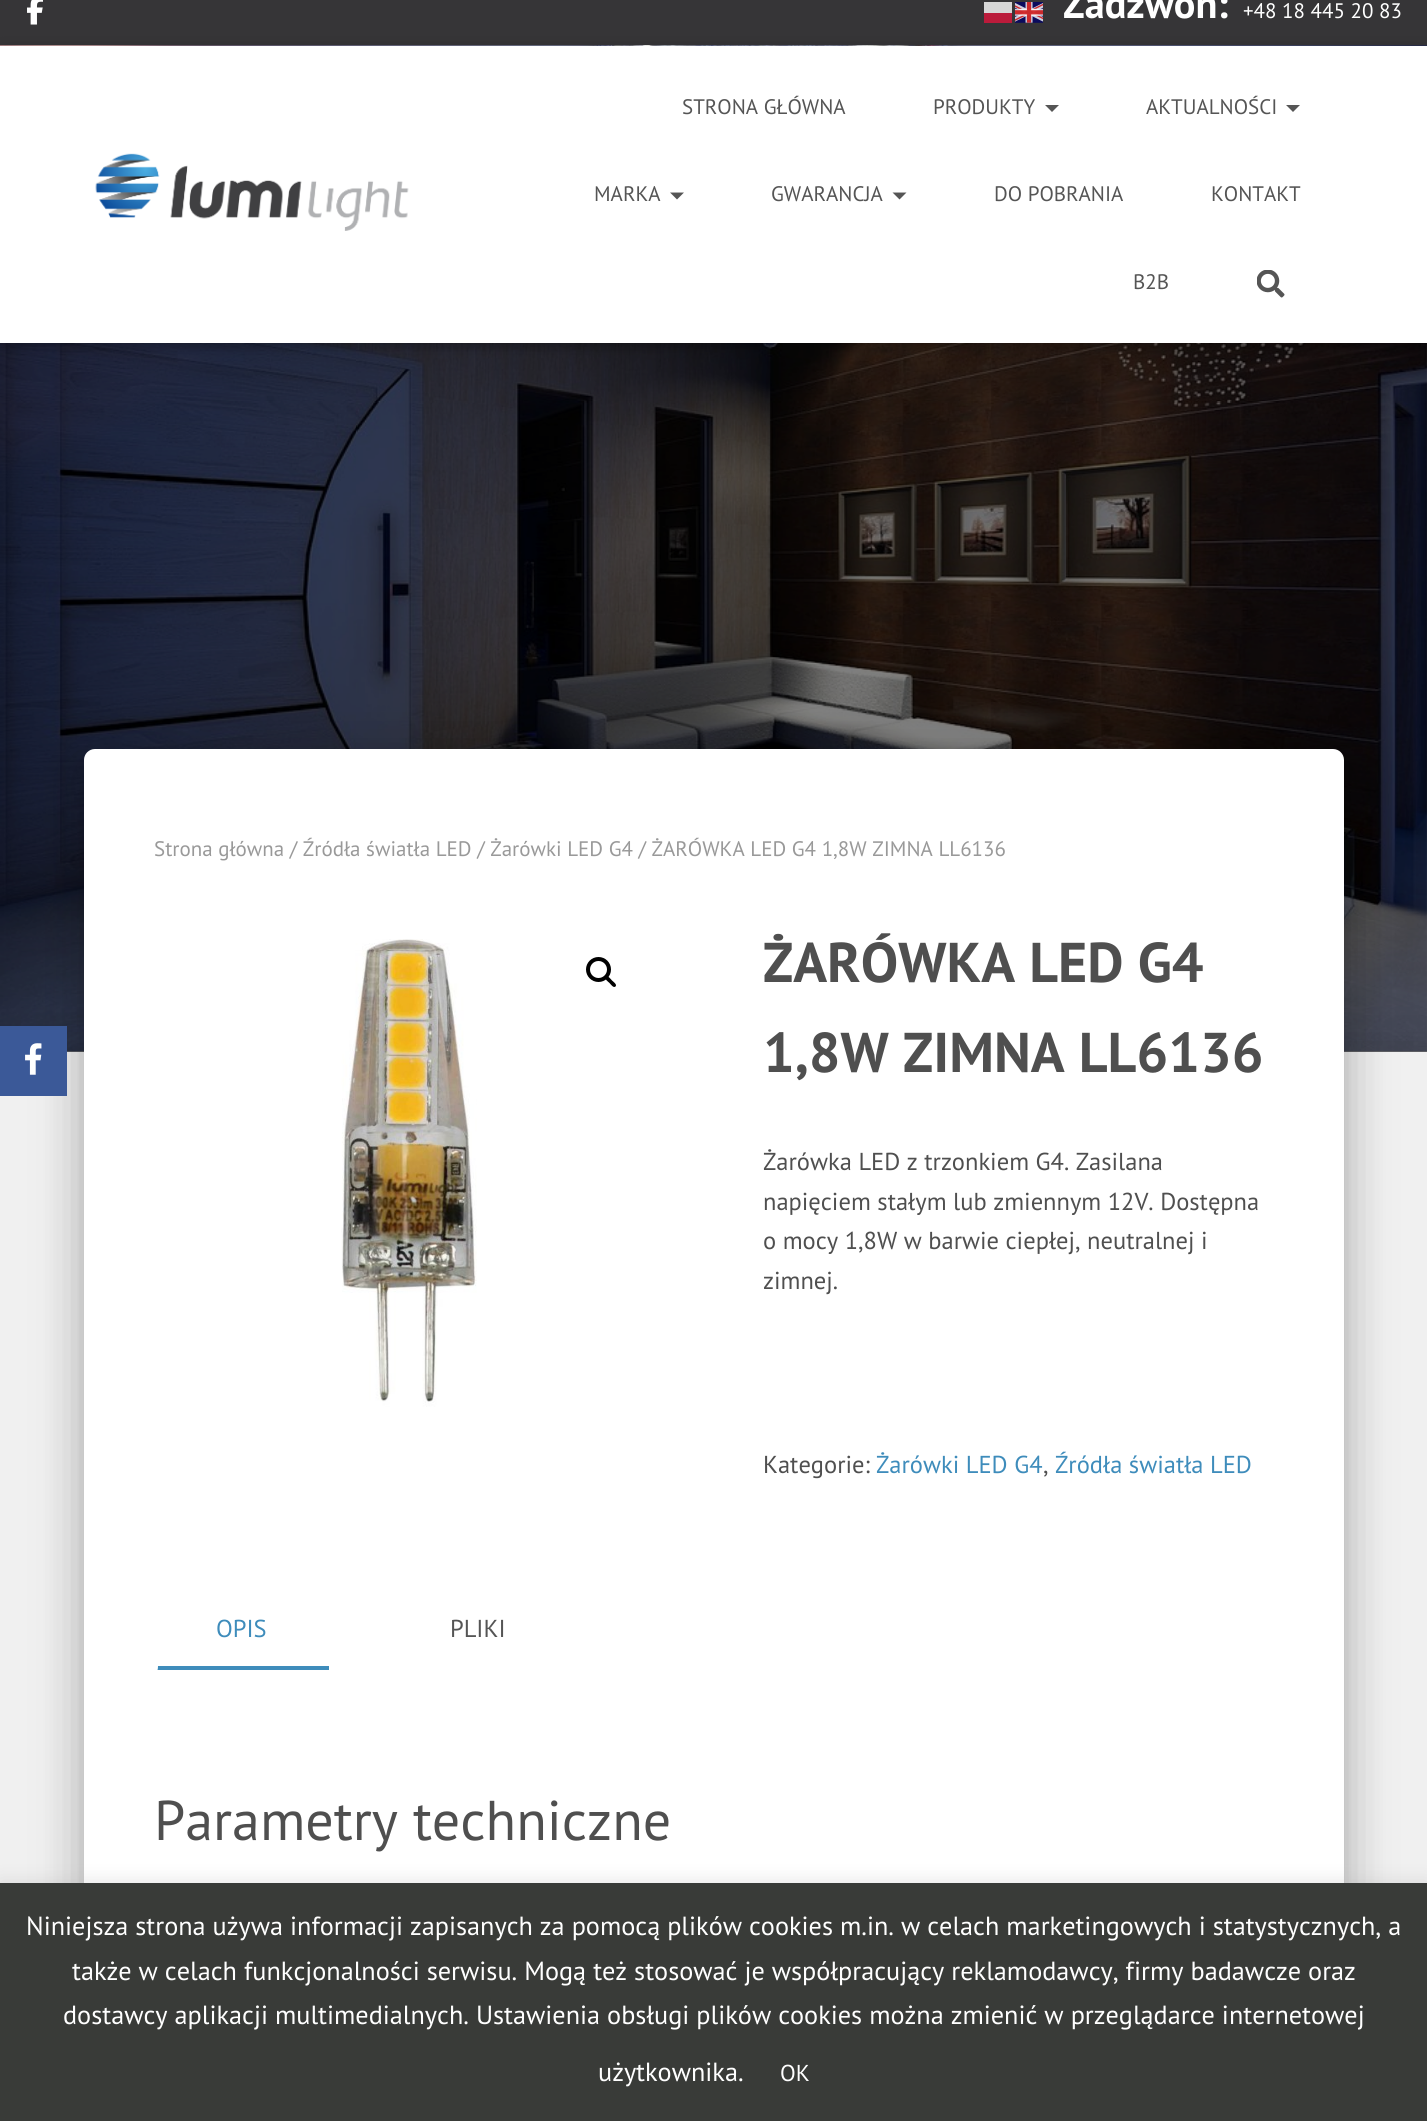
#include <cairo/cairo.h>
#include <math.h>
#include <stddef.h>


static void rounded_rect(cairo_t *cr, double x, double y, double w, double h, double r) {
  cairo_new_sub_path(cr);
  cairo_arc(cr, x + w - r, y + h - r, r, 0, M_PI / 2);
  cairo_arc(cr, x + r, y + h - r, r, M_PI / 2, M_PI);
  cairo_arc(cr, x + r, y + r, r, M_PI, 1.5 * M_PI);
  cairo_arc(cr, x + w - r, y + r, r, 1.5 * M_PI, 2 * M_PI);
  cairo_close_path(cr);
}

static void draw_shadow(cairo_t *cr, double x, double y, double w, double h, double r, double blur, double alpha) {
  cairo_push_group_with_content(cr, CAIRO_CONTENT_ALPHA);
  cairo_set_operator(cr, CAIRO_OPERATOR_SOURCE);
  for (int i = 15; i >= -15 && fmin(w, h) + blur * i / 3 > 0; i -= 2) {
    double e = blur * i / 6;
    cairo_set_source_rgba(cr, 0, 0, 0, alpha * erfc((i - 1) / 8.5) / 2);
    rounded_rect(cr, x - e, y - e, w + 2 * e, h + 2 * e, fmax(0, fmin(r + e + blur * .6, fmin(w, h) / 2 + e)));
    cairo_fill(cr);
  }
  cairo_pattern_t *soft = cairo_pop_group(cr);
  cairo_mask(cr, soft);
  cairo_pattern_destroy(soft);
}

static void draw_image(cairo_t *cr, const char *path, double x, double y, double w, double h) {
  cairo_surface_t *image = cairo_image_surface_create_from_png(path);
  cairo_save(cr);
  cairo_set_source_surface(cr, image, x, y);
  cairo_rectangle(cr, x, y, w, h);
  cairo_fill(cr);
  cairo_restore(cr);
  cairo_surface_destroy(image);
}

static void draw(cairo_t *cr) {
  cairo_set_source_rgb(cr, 115 / 255.0, 115 / 255.0, 115 / 255.0);
  cairo_paint(cr);
  cairo_set_source_rgb(cr, 54 / 255.0, 53 / 255.0, 55 / 255.0);
  cairo_rectangle(cr, 0, 0, 1427, 46);
  cairo_fill(cr);
  draw_image(cr, "images/6.png", 0, 45, 1427, 1007);
  cairo_set_source_rgb(cr, 0, 0, 0);
  draw_shadow(cr, -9, 1054, 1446, 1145, 0, 26, 0.12);
  cairo_set_source_rgb(cr, 240 / 255.0, 240 / 255.0, 240 / 255.0);
  cairo_rectangle(cr, 0, 1052, 1427, 831);
  cairo_fill(cr);
  cairo_set_source_rgb(cr, 0, 0, 0);
  draw_shadow(cr, 93, 772, 1242, 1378, 2, 9, 0.2);
  draw_shadow(cr, 75, 751, 1278, 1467, 19, 26, 0.12);
  draw_shadow(cr, 81, 774, 1267, 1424, 14, 21, 0.14);
  cairo_set_source_rgb(cr, 59 / 255.0, 89 / 255.0, 152 / 255.0);
  cairo_rectangle(cr, 0, 1026, 67, 70);
  cairo_fill(cr);
  draw_image(cr, "images/1.png", 25, 1043, 17, 32);
  draw_image(cr, "images/2.png", 27, 0, 16, 25);
  cairo_set_source_rgb(cr, 215 / 255.0, 215 / 255.0, 215 / 255.0);
  cairo_rectangle(cr, 984, 2, 28, 11);
  cairo_fill(cr);
  draw_image(cr, "images/3.png", 1015, 2, 28, 21);
  cairo_set_source_rgb(cr, 187 / 255.0, 27 / 255.0, 59 / 255.0);
  cairo_rectangle(cr, 984, 13, 28, 10);
  cairo_fill(cr);
  cairo_set_source_rgb(cr, 0, 0, 0);
  draw_shadow(cr, 4, 56, 1421, 291, 0, 4.5, 0.1);
  draw_shadow(cr, 0, 47, 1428, 298, 0, 9, 0.12);
  draw_shadow(cr, 11, 58, 1407, 276, 0, 9, 0.42);
  cairo_set_source_rgb(cr, 1, 1, 1);
  cairo_rectangle(cr, 0, 46, 1427, 297);
  cairo_fill(cr);
  draw_image(cr, "images/4.png", 95, 153, 314, 78);
  cairo_set_source_rgb(cr, 85 / 255.0, 85 / 255.0, 85 / 255.0);
  cairo_new_path(cr);
  cairo_move_to(cr, 1045, 105);
  cairo_line_to(cr, 1059, 105);
  cairo_line_to(cr, 1052, 112);
  cairo_close_path(cr);
  cairo_fill(cr);
  cairo_new_path(cr);
  cairo_move_to(cr, 1286, 105);
  cairo_line_to(cr, 1300, 105);
  cairo_line_to(cr, 1293, 112);
  cairo_close_path(cr);
  cairo_fill(cr);
  cairo_new_path(cr);
  cairo_move_to(cr, 670, 192.5);
  cairo_line_to(cr, 684, 192.5);
  cairo_line_to(cr, 677, 199.5);
  cairo_close_path(cr);
  cairo_fill(cr);
  cairo_new_path(cr);
  cairo_move_to(cr, 892.5, 192.5);
  cairo_line_to(cr, 906.5, 192.5);
  cairo_line_to(cr, 899.5, 199.5);
  cairo_close_path(cr);
  cairo_fill(cr);
  draw_image(cr, "images/5.png", 1257, 270, 28, 28);
  cairo_set_source_rgb(cr, 1, 1, 1);
  rounded_rect(cr, 84, 749, 1260, 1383, 11);
  cairo_fill(cr);
  draw_image(cr, "images/7.png", 341, 939, 136, 468);
  cairo_arc(cr, 598.5, 969.5, 10.5, 0, 2 * M_PI);
  cairo_set_source_rgb(cr, 0, 0, 0);
  cairo_set_line_width(cr, 4);
  cairo_stroke(cr);
  cairo_new_path(cr);
  cairo_move_to(cr, 606, 977);
  cairo_curve_to(cr, 608, 975, 611, 979.5, 612, 980.5);
  cairo_curve_to(cr, 613, 981.5, 617.5, 984.5, 615.5, 986.5);
  cairo_curve_to(cr, 613.5, 988.5, 610.5, 984, 609.5, 983);
  cairo_curve_to(cr, 608.5, 982, 604, 979, 606, 977);
  cairo_close_path(cr);
  cairo_fill(cr);
  cairo_set_source_rgb(cr, 62 / 255.0, 140 / 255.0, 187 / 255.0);
  cairo_rectangle(cr, 154, 1666, 175, 4);
  cairo_fill(cr);
  cairo_set_source_rgb(cr, 1, 1, 1);
  cairo_new_path(cr);
  cairo_move_to(cr, 149, 1671);
  cairo_line_to(cr, 149, 1675);
  cairo_curve_to(cr, 155.5, 1675, 158, 1672.5, 158, 1666);
  cairo_line_to(cr, 154, 1666);
  cairo_curve_to(cr, 153, 1668.5, 151.5, 1670.5, 149, 1671);
  cairo_close_path(cr);
  cairo_fill(cr);
  cairo_set_source_rgb(cr, 172 / 255.0, 171 / 255.0, 171 / 255.0);
  draw_shadow(cr, 0, 1881, 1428, 238, 0, 9, 0.3);
  cairo_set_source_rgb(cr, 57 / 255.0, 59 / 255.0, 56 / 255.0);
  cairo_rectangle(cr, 0, 1883, 1427, 238);
  cairo_fill(cr);
  cairo_select_font_face(cr, "PT Sans", CAIRO_FONT_SLANT_NORMAL, CAIRO_FONT_WEIGHT_BOLD);
  cairo_set_font_size(cr, 40.25);
  cairo_set_source_rgb(cr, 1, 1, 1);
  cairo_move_to(cr, 1063, 18);
  cairo_show_text(cr, "Zadzwoń:");
  cairo_select_font_face(cr, "PT Sans", CAIRO_FONT_SLANT_NORMAL, CAIRO_FONT_WEIGHT_NORMAL);
  cairo_set_font_size(cr, 21);
  cairo_move_to(cr, 1243, 18);
  cairo_show_text(cr, "+48 18 445 20 83");
  cairo_set_source_rgb(cr, 85 / 255.0, 85 / 255.0, 85 / 255.0);
  cairo_move_to(cr, 682, 114);
  cairo_show_text(cr, "STRONA GŁÓWNA");
  cairo_move_to(cr, 933, 114);
  cairo_show_text(cr, "PRODUKTY");
  cairo_move_to(cr, 1146, 114);
  cairo_show_text(cr, "AKTUALNOŚCI");
  cairo_move_to(cr, 594, 201);
  cairo_show_text(cr, "MARKA");
  cairo_move_to(cr, 771, 201);
  cairo_show_text(cr, "GWARANCJA");
  cairo_move_to(cr, 994, 201);
  cairo_show_text(cr, "DO POBRANIA");
  cairo_move_to(cr, 1211, 201);
  cairo_show_text(cr, "KONTAKT");
  cairo_move_to(cr, 1133, 289);
  cairo_show_text(cr, "B2B");
  cairo_set_source_rgb(cr, 153 / 255.0, 153 / 255.0, 153 / 255.0);
  cairo_move_to(cr, 154, 856);
  cairo_show_text(cr, "Strona główna / Źródła światła LED / Żarówki LED G4 / ŻARÓWKA LED G4 1,8W ZIMNA LL6136");
  cairo_select_font_face(cr, "PT Sans", CAIRO_FONT_SLANT_NORMAL, CAIRO_FONT_WEIGHT_BOLD);
  cairo_set_font_size(cr, 56);
  cairo_set_source_rgb(cr, 79 / 255.0, 79 / 255.0, 79 / 255.0);
  cairo_move_to(cr, 763, 982);
  cairo_show_text(cr, "ŻARÓWKA LED G4");
  cairo_move_to(cr, 763, 1072);
  cairo_show_text(cr, "1,8W ZIMNA LL6136");
  cairo_select_font_face(cr, "PT Sans", CAIRO_FONT_SLANT_NORMAL, CAIRO_FONT_WEIGHT_NORMAL);
  cairo_set_font_size(cr, 24.5);
  cairo_move_to(cr, 763, 1170);
  cairo_show_text(cr, "Żarówka LED z trzonkiem G4. Zasilana");
  cairo_move_to(cr, 763, 1210);
  cairo_show_text(cr, "napięciem stałym lub zmiennym 12V. Dostępna");
  cairo_move_to(cr, 763, 1249);
  cairo_show_text(cr, "o mocy 1,8W w barwie ciepłej, neutralnej i");
  cairo_move_to(cr, 763, 1289);
  cairo_show_text(cr, "zimnej.");
  cairo_move_to(cr, 763, 1473);
  cairo_show_text(cr, "Kategorie:");
  cairo_set_source_rgb(cr, 62 / 255.0, 140 / 255.0, 187 / 255.0);
  cairo_move_to(cr, 876, 1473);
  cairo_show_text(cr, "Żarówki LED G4");
  cairo_set_source_rgb(cr, 79 / 255.0, 79 / 255.0, 79 / 255.0);
  cairo_move_to(cr, 1043, 1473);
  cairo_show_text(cr, ",");
  cairo_set_source_rgb(cr, 62 / 255.0, 140 / 255.0, 187 / 255.0);
  cairo_move_to(cr, 1055, 1473);
  cairo_show_text(cr, "Źródła światła LED");
  cairo_move_to(cr, 216, 1637);
  cairo_show_text(cr, "OPIS");
  cairo_set_source_rgb(cr, 85 / 255.0, 85 / 255.0, 85 / 255.0);
  cairo_move_to(cr, 450, 1637);
  cairo_show_text(cr, "PLIKI");
  cairo_set_font_size(cr, 56);
  cairo_set_source_rgb(cr, 79 / 255.0, 79 / 255.0, 79 / 255.0);
  cairo_move_to(cr, 154, 1840);
  cairo_show_text(cr, "Parametry techniczne");
  cairo_set_font_size(cr, 26.25);
  cairo_set_source_rgb(cr, 1, 1, 1);
  cairo_move_to(cr, 26, 1935);
  cairo_show_text(cr, "Niniejsza strona używa informacji zapisanych za pomocą plików cookies m.in. w celach marketingowych i statystycznych, a");
  cairo_move_to(cr, 72, 1980);
  cairo_show_text(cr, "także w celach funkcjonalności serwisu. Mogą też stosować je współpracujący reklamodawcy, firmy badawcze oraz");
  cairo_move_to(cr, 63, 2024);
  cairo_show_text(cr, "dostawcy aplikacji multimedialnych. Ustawienia obsługi plików cookies można zmienić w przeglądarce internetowej");
  cairo_move_to(cr, 598, 2081);
  cairo_show_text(cr, "użytkownika.");
  cairo_set_font_size(cr, 23);
  cairo_move_to(cr, 780, 2081);
  cairo_show_text(cr, "OK");
}

int main(void) {
  cairo_surface_t *surface = cairo_image_surface_create(CAIRO_FORMAT_RGB24, 1427, 2121);
  cairo_t *cr = cairo_create(surface);
  cairo_font_options_t *options = cairo_font_options_create();
  cairo_font_options_set_hint_metrics(options, CAIRO_HINT_METRICS_OFF);
  cairo_font_options_set_hint_style(options, CAIRO_HINT_STYLE_NONE);
  cairo_set_font_options(cr, options);
  cairo_set_miter_limit(cr, 4);
  draw(cr);
  cairo_surface_write_to_png(surface, "out.png");
  cairo_font_options_destroy(options);
  cairo_destroy(cr);
  cairo_surface_destroy(surface);
  return 0;
}
